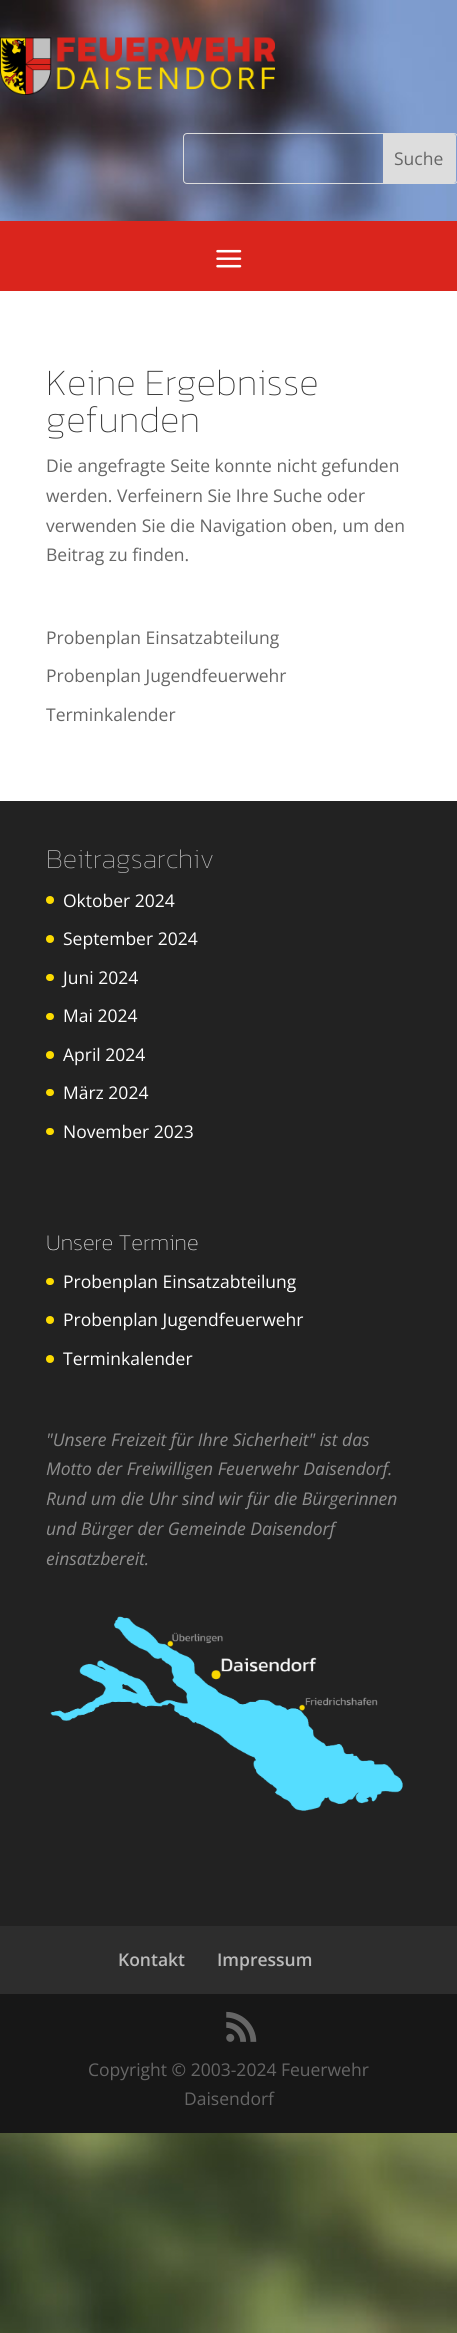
#include <cairo/cairo.h>
#include <math.h>
#include <stddef.h>


static void rounded_rect(cairo_t *cr, double x, double y, double w, double h, double r) {
  cairo_new_sub_path(cr);
  cairo_arc(cr, x + w - r, y + h - r, r, 0, M_PI / 2);
  cairo_arc(cr, x + r, y + h - r, r, M_PI / 2, M_PI);
  cairo_arc(cr, x + r, y + r, r, M_PI, 1.5 * M_PI);
  cairo_arc(cr, x + w - r, y + r, r, 1.5 * M_PI, 2 * M_PI);
  cairo_close_path(cr);
}

static void draw_image(cairo_t *cr, const char *path, double x, double y, double w, double h) {
  cairo_surface_t *image = cairo_image_surface_create_from_png(path);
  cairo_save(cr);
  cairo_set_source_surface(cr, image, x, y);
  cairo_rectangle(cr, x, y, w, h);
  cairo_fill(cr);
  cairo_restore(cr);
  cairo_surface_destroy(image);
}

static void draw(cairo_t *cr) {
  cairo_set_source_rgb(cr, 1, 1, 1);
  cairo_paint(cr);
  draw_image(cr, "images/1.png", 0, 0, 457, 2333);
  draw_image(cr, "images/2.png", 0, 37, 275, 58);
  rounded_rect(cr, 183.5, 133.5, 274, 50, 3.5);
  cairo_set_source_rgb(cr, 221 / 255.0, 221 / 255.0, 221 / 255.0);
  cairo_set_line_width(cr, 1);
  cairo_stroke(cr);
  cairo_new_path(cr);
  cairo_move_to(cr, 383, 134);
  cairo_line_to(cr, 453.5, 134);
  cairo_curve_to(cr, 455, 134, 456, 135, 456, 136.5);
  cairo_line_to(cr, 456, 180.5);
  cairo_curve_to(cr, 456, 182, 455, 183, 453.5, 183);
  cairo_line_to(cr, 383, 183);
  cairo_close_path(cr);
  cairo_fill(cr);
  cairo_set_source_rgb(cr, 218 / 255.0, 37 / 255.0, 29 / 255.0);
  cairo_rectangle(cr, 0, 221, 457, 70);
  cairo_fill(cr);
  draw_image(cr, "images/3.png", 216, 249, 26, 19);
  cairo_set_source_rgb(cr, 1, 1, 1);
  cairo_rectangle(cr, 0, 291, 457, 510);
  cairo_fill(cr);
  cairo_set_source_rgb(cr, 34 / 255.0, 34 / 255.0, 34 / 255.0);
  cairo_rectangle(cr, 0, 801, 457, 1125);
  cairo_fill(cr);
  cairo_set_source_rgb(cr, 252 / 255.0, 219 / 255.0, 0);
  cairo_arc(cr, 50, 900, 4, 0, 2 * M_PI);
  cairo_fill(cr);
  cairo_arc(cr, 50, 939, 4, 0, 2 * M_PI);
  cairo_fill(cr);
  rounded_rect(cr, 46, 974, 8, 7, 3.5);
  cairo_fill(cr);
  rounded_rect(cr, 46, 1013, 8, 7, 3.5);
  cairo_fill(cr);
  cairo_arc(cr, 50, 1055, 4, 0, 2 * M_PI);
  cairo_fill(cr);
  rounded_rect(cr, 46, 1089, 8, 7, 3.5);
  cairo_fill(cr);
  rounded_rect(cr, 46, 1128, 8, 7, 3.5);
  cairo_fill(cr);
  rounded_rect(cr, 46, 1278, 8, 7, 3.5);
  cairo_fill(cr);
  cairo_arc(cr, 50, 1320, 4, 0, 2 * M_PI);
  cairo_fill(cr);
  cairo_arc(cr, 50, 1359, 4, 0, 2 * M_PI);
  cairo_fill(cr);
  draw_image(cr, "images/4.png", 50, 1616, 353, 195);
  cairo_set_source_rgb(cr, 45 / 255.0, 45 / 255.0, 45 / 255.0);
  cairo_rectangle(cr, 0, 1926, 457, 68);
  cairo_fill(cr);
  cairo_set_source_rgb(cr, 23 / 255.0, 23 / 255.0, 23 / 255.0);
  cairo_rectangle(cr, 0, 1994, 457, 139);
  cairo_fill(cr);
  draw_image(cr, "images/5.png", 226, 2011, 31, 31);
  cairo_select_font_face(cr, "Open Sans", CAIRO_FONT_SLANT_NORMAL, CAIRO_FONT_WEIGHT_NORMAL);
  cairo_set_font_size(cr, 17.5);
  cairo_set_source_rgb(cr, 102 / 255.0, 102 / 255.0, 102 / 255.0);
  cairo_move_to(cr, 394, 165);
  cairo_show_text(cr, "Suche");
  cairo_select_font_face(cr, "Kanit Thin", CAIRO_FONT_SLANT_NORMAL, CAIRO_FONT_WEIGHT_NORMAL);
  cairo_set_font_size(cr, 37.5);
  cairo_set_source_rgb(cr, 51 / 255.0, 51 / 255.0, 51 / 255.0);
  cairo_move_to(cr, 46, 395);
  cairo_show_text(cr, "Keine Ergebnisse");
  cairo_move_to(cr, 46, 432);
  cairo_show_text(cr, "gefunden");
  cairo_select_font_face(cr, "Open Sans", CAIRO_FONT_SLANT_NORMAL, CAIRO_FONT_WEIGHT_NORMAL);
  cairo_set_font_size(cr, 17.5);
  cairo_set_source_rgb(cr, 102 / 255.0, 102 / 255.0, 102 / 255.0);
  cairo_move_to(cr, 46, 472);
  cairo_show_text(cr, "Die angefragte Seite konnte nicht gefunden");
  cairo_move_to(cr, 46, 502);
  cairo_show_text(cr, "werden. Verfeinern Sie Ihre Suche oder");
  cairo_move_to(cr, 46, 532);
  cairo_show_text(cr, "verwenden Sie die Navigation oben, um den");
  cairo_move_to(cr, 46, 561);
  cairo_show_text(cr, "Beitrag zu finden.");
  cairo_move_to(cr, 46, 644);
  cairo_show_text(cr, "Probenplan Einsatzabteilung");
  cairo_move_to(cr, 46, 682);
  cairo_show_text(cr, "Probenplan Jugendfeuerwehr");
  cairo_move_to(cr, 46, 721);
  cairo_show_text(cr, "Terminkalender");
  cairo_select_font_face(cr, "Kanit Thin", CAIRO_FONT_SLANT_NORMAL, CAIRO_FONT_WEIGHT_NORMAL);
  cairo_set_font_size(cr, 27.5);
  cairo_set_source_rgb(cr, 195 / 255.0, 195 / 255.0, 195 / 255.0);
  cairo_move_to(cr, 46, 868);
  cairo_show_text(cr, "Beitragsarchiv");
  cairo_select_font_face(cr, "Open Sans", CAIRO_FONT_SLANT_NORMAL, CAIRO_FONT_WEIGHT_NORMAL);
  cairo_set_font_size(cr, 17.5);
  cairo_set_source_rgb(cr, 1, 1, 1);
  cairo_move_to(cr, 63, 907);
  cairo_show_text(cr, "Oktober 2024");
  cairo_move_to(cr, 63, 945);
  cairo_show_text(cr, "September 2024");
  cairo_move_to(cr, 63, 984);
  cairo_show_text(cr, "Juni 2024");
  cairo_move_to(cr, 63, 1022);
  cairo_show_text(cr, "Mai 2024");
  cairo_move_to(cr, 63, 1061);
  cairo_show_text(cr, "April 2024");
  cairo_move_to(cr, 63, 1099);
  cairo_show_text(cr, "März 2024");
  cairo_move_to(cr, 63, 1138);
  cairo_show_text(cr, "November 2023");
  cairo_select_font_face(cr, "Kanit Thin", CAIRO_FONT_SLANT_NORMAL, CAIRO_FONT_WEIGHT_NORMAL);
  cairo_set_font_size(cr, 22.5);
  cairo_move_to(cr, 46, 1250);
  cairo_show_text(cr, "Unsere Termine");
  cairo_select_font_face(cr, "Open Sans", CAIRO_FONT_SLANT_NORMAL, CAIRO_FONT_WEIGHT_NORMAL);
  cairo_set_font_size(cr, 17.5);
  cairo_move_to(cr, 63, 1288);
  cairo_show_text(cr, "Probenplan Einsatzabteilung");
  cairo_move_to(cr, 63, 1326);
  cairo_show_text(cr, "Probenplan Jugendfeuerwehr");
  cairo_move_to(cr, 63, 1365);
  cairo_show_text(cr, "Terminkalender");
  cairo_select_font_face(cr, "Open Sans", CAIRO_FONT_SLANT_ITALIC, CAIRO_FONT_WEIGHT_NORMAL);
  cairo_set_source_rgb(cr, 143 / 255.0, 143 / 255.0, 143 / 255.0);
  cairo_move_to(cr, 46, 1446);
  cairo_show_text(cr, "\"Unsere Freizeit für Ihre Sicherheit\" ist das");
  cairo_move_to(cr, 46, 1475);
  cairo_show_text(cr, "Motto der Freiwilligen Feuerwehr Daisendorf.");
  cairo_move_to(cr, 46, 1505);
  cairo_show_text(cr, "Rund um die Uhr sind wir für die Bürgerinnen");
  cairo_move_to(cr, 46, 1535);
  cairo_show_text(cr, "und Bürger der Gemeinde Daisendorf");
  cairo_move_to(cr, 46, 1565);
  cairo_show_text(cr, "einsatzbereit.");
  cairo_select_font_face(cr, "Open Sans SemiBold", CAIRO_FONT_SLANT_NORMAL, CAIRO_FONT_WEIGHT_NORMAL);
  cairo_set_source_rgb(cr, 187 / 255.0, 187 / 255.0, 187 / 255.0);
  cairo_move_to(cr, 118, 1966);
  cairo_show_text(cr, "Kontakt");
  cairo_move_to(cr, 217, 1966);
  cairo_show_text(cr, "Impressum");
  cairo_select_font_face(cr, "Open Sans", CAIRO_FONT_SLANT_NORMAL, CAIRO_FONT_WEIGHT_NORMAL);
  cairo_set_source_rgb(cr, 102 / 255.0, 102 / 255.0, 102 / 255.0);
  cairo_move_to(cr, 88, 2076);
  cairo_show_text(cr, "Copyright © 2003-2024 Feuerwehr");
  cairo_move_to(cr, 184, 2105);
  cairo_show_text(cr, "Daisendorf");
}

int main(void) {
  cairo_surface_t *surface = cairo_image_surface_create(CAIRO_FORMAT_RGB24, 457, 2333);
  cairo_t *cr = cairo_create(surface);
  cairo_font_options_t *options = cairo_font_options_create();
  cairo_font_options_set_hint_metrics(options, CAIRO_HINT_METRICS_OFF);
  cairo_font_options_set_hint_style(options, CAIRO_HINT_STYLE_NONE);
  cairo_set_font_options(cr, options);
  cairo_set_miter_limit(cr, 4);
  draw(cr);
  cairo_surface_write_to_png(surface, "out.png");
  cairo_font_options_destroy(options);
  cairo_destroy(cr);
  cairo_surface_destroy(surface);
  return 0;
}
